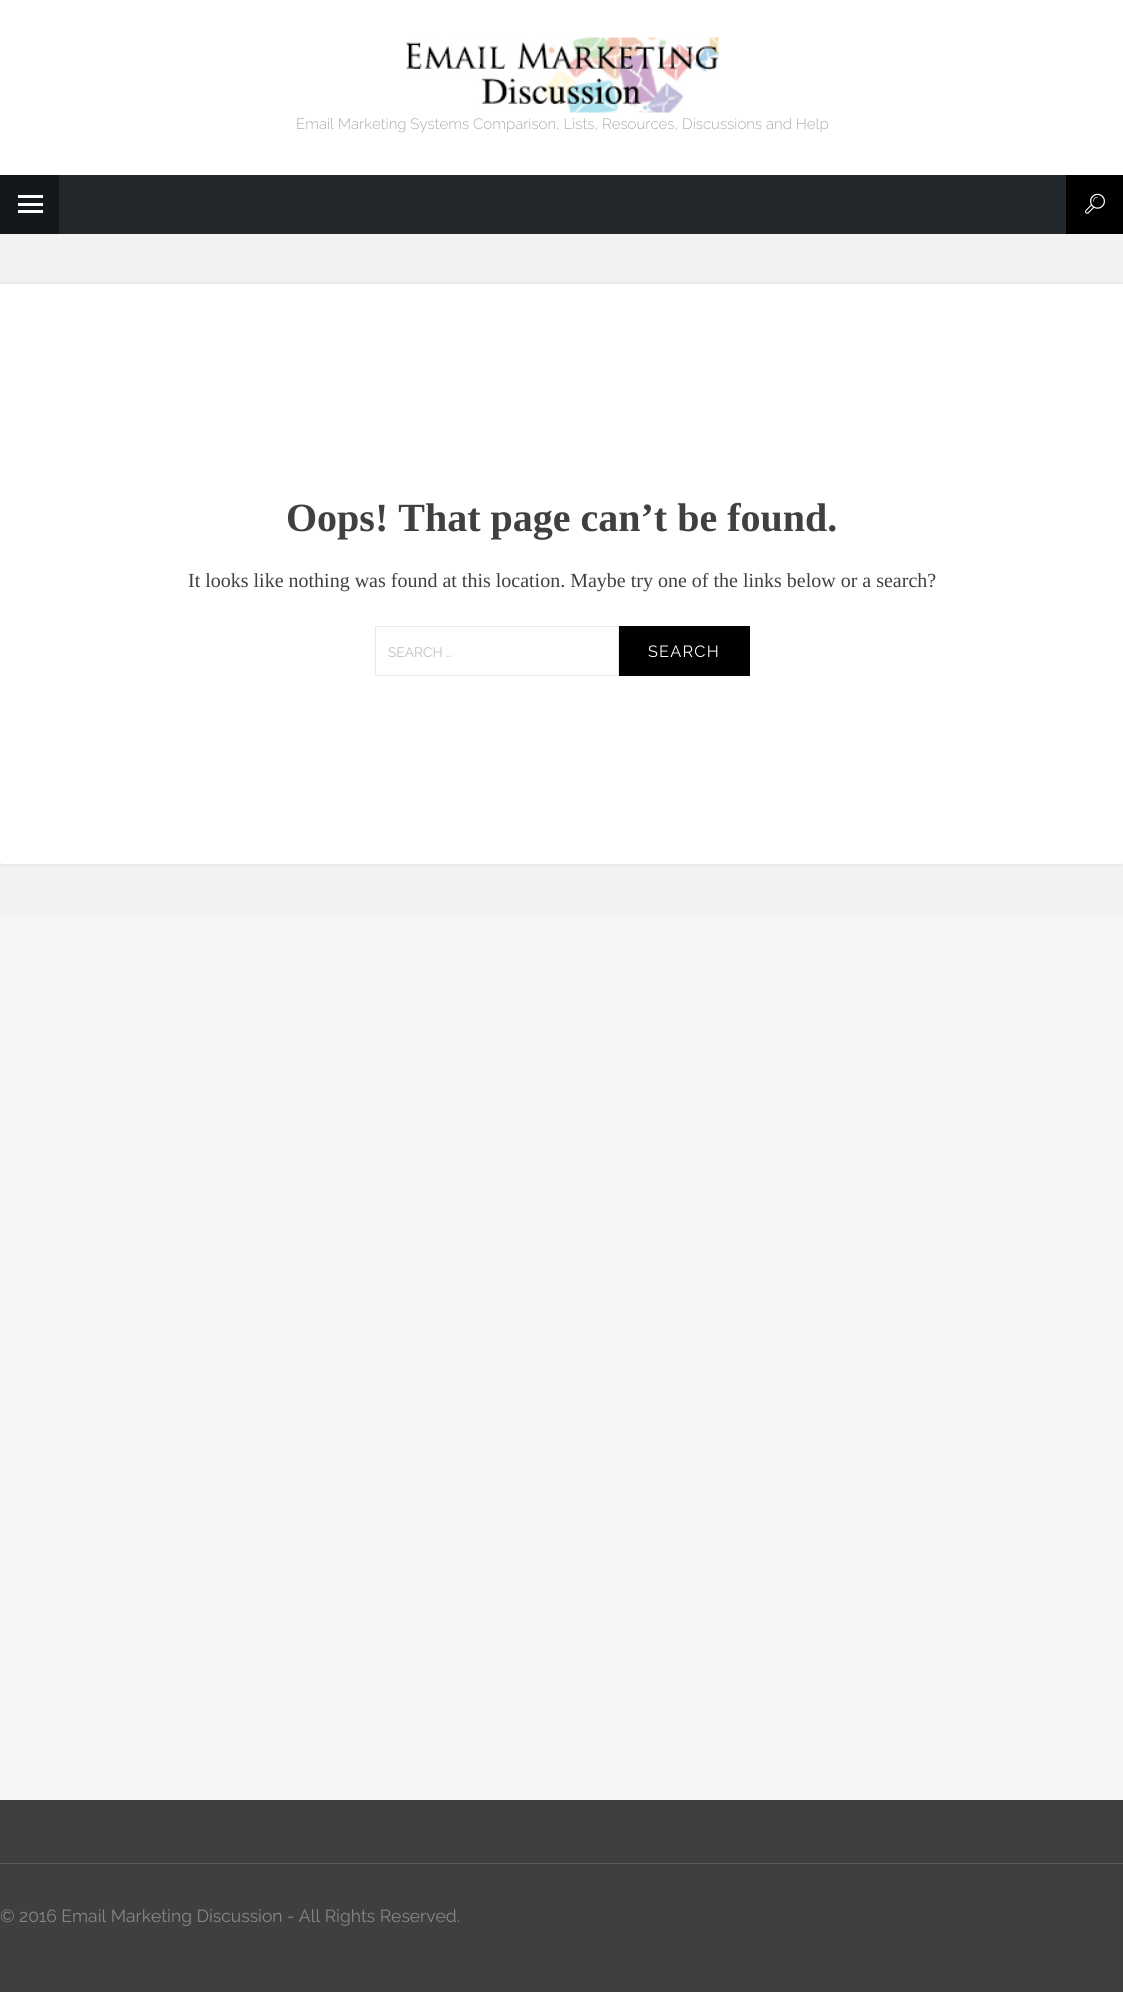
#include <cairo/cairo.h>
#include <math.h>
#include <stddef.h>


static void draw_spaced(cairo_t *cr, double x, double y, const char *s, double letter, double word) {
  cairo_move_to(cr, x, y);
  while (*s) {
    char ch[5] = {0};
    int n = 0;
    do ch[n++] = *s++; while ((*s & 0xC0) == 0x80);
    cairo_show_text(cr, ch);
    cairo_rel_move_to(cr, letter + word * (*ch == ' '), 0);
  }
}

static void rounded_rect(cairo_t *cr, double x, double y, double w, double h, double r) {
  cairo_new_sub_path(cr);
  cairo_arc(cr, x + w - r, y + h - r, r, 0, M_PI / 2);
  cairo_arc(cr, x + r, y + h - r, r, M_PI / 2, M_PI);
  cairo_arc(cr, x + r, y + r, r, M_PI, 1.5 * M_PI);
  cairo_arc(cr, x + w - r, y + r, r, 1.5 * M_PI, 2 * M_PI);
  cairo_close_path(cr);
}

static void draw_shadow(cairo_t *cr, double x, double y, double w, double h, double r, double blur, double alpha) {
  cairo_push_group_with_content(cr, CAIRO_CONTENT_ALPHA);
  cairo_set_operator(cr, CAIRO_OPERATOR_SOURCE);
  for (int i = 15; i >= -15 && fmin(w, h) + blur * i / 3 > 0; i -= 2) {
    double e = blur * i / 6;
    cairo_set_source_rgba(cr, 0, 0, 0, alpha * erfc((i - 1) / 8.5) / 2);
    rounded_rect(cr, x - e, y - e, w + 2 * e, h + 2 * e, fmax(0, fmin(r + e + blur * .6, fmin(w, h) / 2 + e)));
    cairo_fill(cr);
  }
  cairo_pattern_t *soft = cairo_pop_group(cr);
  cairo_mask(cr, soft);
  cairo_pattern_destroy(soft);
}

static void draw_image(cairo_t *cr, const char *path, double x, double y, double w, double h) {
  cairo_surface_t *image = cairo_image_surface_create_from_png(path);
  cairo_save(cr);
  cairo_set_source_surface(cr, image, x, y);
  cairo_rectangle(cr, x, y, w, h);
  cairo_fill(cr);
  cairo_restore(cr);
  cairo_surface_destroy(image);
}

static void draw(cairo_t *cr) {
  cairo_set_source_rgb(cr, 245 / 255.0, 245 / 255.0, 245 / 255.0);
  cairo_paint(cr);
  cairo_set_source_rgb(cr, 1, 1, 1);
  cairo_rectangle(cr, 0, 0, 1123, 175);
  cairo_fill(cr);
  draw_image(cr, "images/1.png", 406, 37, 313, 76);
  cairo_set_source_rgb(cr, 35 / 255.0, 40 / 255.0, 45 / 255.0);
  cairo_rectangle(cr, 59, 175, 1007, 59);
  cairo_fill(cr);
  cairo_set_source_rgb(cr, 21 / 255.0, 24 / 255.0, 27 / 255.0);
  cairo_rectangle(cr, 0, 175, 59, 59);
  cairo_fill(cr);
  cairo_set_source_rgb(cr, 1, 1, 1);
  cairo_rectangle(cr, 18, 203, 25, 3);
  cairo_fill(cr);
  cairo_rectangle(cr, 18, 195, 25, 3);
  cairo_fill(cr);
  cairo_rectangle(cr, 18, 210, 25, 3);
  cairo_fill(cr);
  cairo_set_source_rgb(cr, 0, 0, 0);
  cairo_rectangle(cr, 1066, 175, 57, 59);
  cairo_fill(cr);
  draw_image(cr, "images/2.png", 1085, 193, 20, 21);
  cairo_set_source_rgb(cr, 242 / 255.0, 242 / 255.0, 242 / 255.0);
  cairo_rectangle(cr, 0, 234, 1123, 680);
  cairo_fill(cr);
  cairo_set_source_rgb(cr, 0, 0, 1 / 255.0);
  draw_shadow(cr, 0, 284, 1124, 580, 2.5, 2, 0.1);
  cairo_set_source_rgb(cr, 1, 1, 1);
  rounded_rect(cr, 0, 284, 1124, 580, 2.5);
  cairo_fill(cr);
  cairo_rectangle(cr, 375.5, 626.5, 243, 49);
  cairo_set_source_rgb(cr, 233 / 255.0, 233 / 255.0, 233 / 255.0);
  cairo_set_line_width(cr, 1);
  cairo_stroke(cr);
  cairo_set_source_rgb(cr, 0, 0, 0);
  cairo_rectangle(cr, 619, 626, 131, 50);
  cairo_fill(cr);
  cairo_set_source_rgb(cr, 63 / 255.0, 63 / 255.0, 63 / 255.0);
  cairo_rectangle(cr, 0, 1800, 1123, 192);
  cairo_fill(cr);
  cairo_set_source_rgb(cr, 92 / 255.0, 92 / 255.0, 92 / 255.0);
  cairo_rectangle(cr, 0, 1863, 1123, 1);
  cairo_fill(cr);
  cairo_select_font_face(cr, "Raleway Light", CAIRO_FONT_SLANT_NORMAL, CAIRO_FONT_WEIGHT_NORMAL);
  cairo_set_font_size(cr, 15);
  cairo_set_source_rgb(cr, 172 / 255.0, 172 / 255.0, 172 / 255.0);
  cairo_move_to(cr, 296, 129);
  cairo_show_text(cr, "Email Marketing Systems Comparison, Lists, Resources, Discussions and Help");
  cairo_select_font_face(cr, "Liberation Serif", CAIRO_FONT_SLANT_NORMAL, CAIRO_FONT_WEIGHT_BOLD);
  cairo_set_font_size(cr, 40);
  cairo_set_source_rgb(cr, 64 / 255.0, 64 / 255.0, 64 / 255.0);
  cairo_move_to(cr, 286, 531);
  cairo_show_text(cr, "Oops! That page can’t be found.");
  cairo_select_font_face(cr, "Liberation Serif", CAIRO_FONT_SLANT_NORMAL, CAIRO_FONT_WEIGHT_NORMAL);
  cairo_set_font_size(cr, 20);
  cairo_move_to(cr, 188, 587);
  cairo_show_text(cr, "It looks like nothing was found at this location. Maybe try one of the links below or a search?");
  cairo_select_font_face(cr, "Raleway", CAIRO_FONT_SLANT_NORMAL, CAIRO_FONT_WEIGHT_NORMAL);
  cairo_set_font_size(cr, 13.75);
  cairo_set_source_rgb(cr, 191 / 255.0, 191 / 255.0, 191 / 255.0);
  cairo_move_to(cr, 388, 657);
  cairo_show_text(cr, "SEARCH …");
  cairo_set_font_size(cr, 16.25);
  cairo_set_source_rgb(cr, 1, 1, 1);
  draw_spaced(cr, 648, 657, "SEARCH", 1.25, 0);
  cairo_set_font_size(cr, 17.5);
  cairo_set_source_rgb(cr, 134 / 255.0, 134 / 255.0, 134 / 255.0);
  cairo_move_to(cr, 0, 1922);
  cairo_show_text(cr, "© 2016 Email Marketing Discussion - All Rights Reserved.");
}

int main(void) {
  cairo_surface_t *surface = cairo_image_surface_create(CAIRO_FORMAT_RGB24, 1123, 1992);
  cairo_t *cr = cairo_create(surface);
  cairo_font_options_t *options = cairo_font_options_create();
  cairo_font_options_set_hint_metrics(options, CAIRO_HINT_METRICS_OFF);
  cairo_font_options_set_hint_style(options, CAIRO_HINT_STYLE_NONE);
  cairo_set_font_options(cr, options);
  cairo_set_miter_limit(cr, 4);
  draw(cr);
  cairo_surface_write_to_png(surface, "out.png");
  cairo_font_options_destroy(options);
  cairo_destroy(cr);
  cairo_surface_destroy(surface);
  return 0;
}
